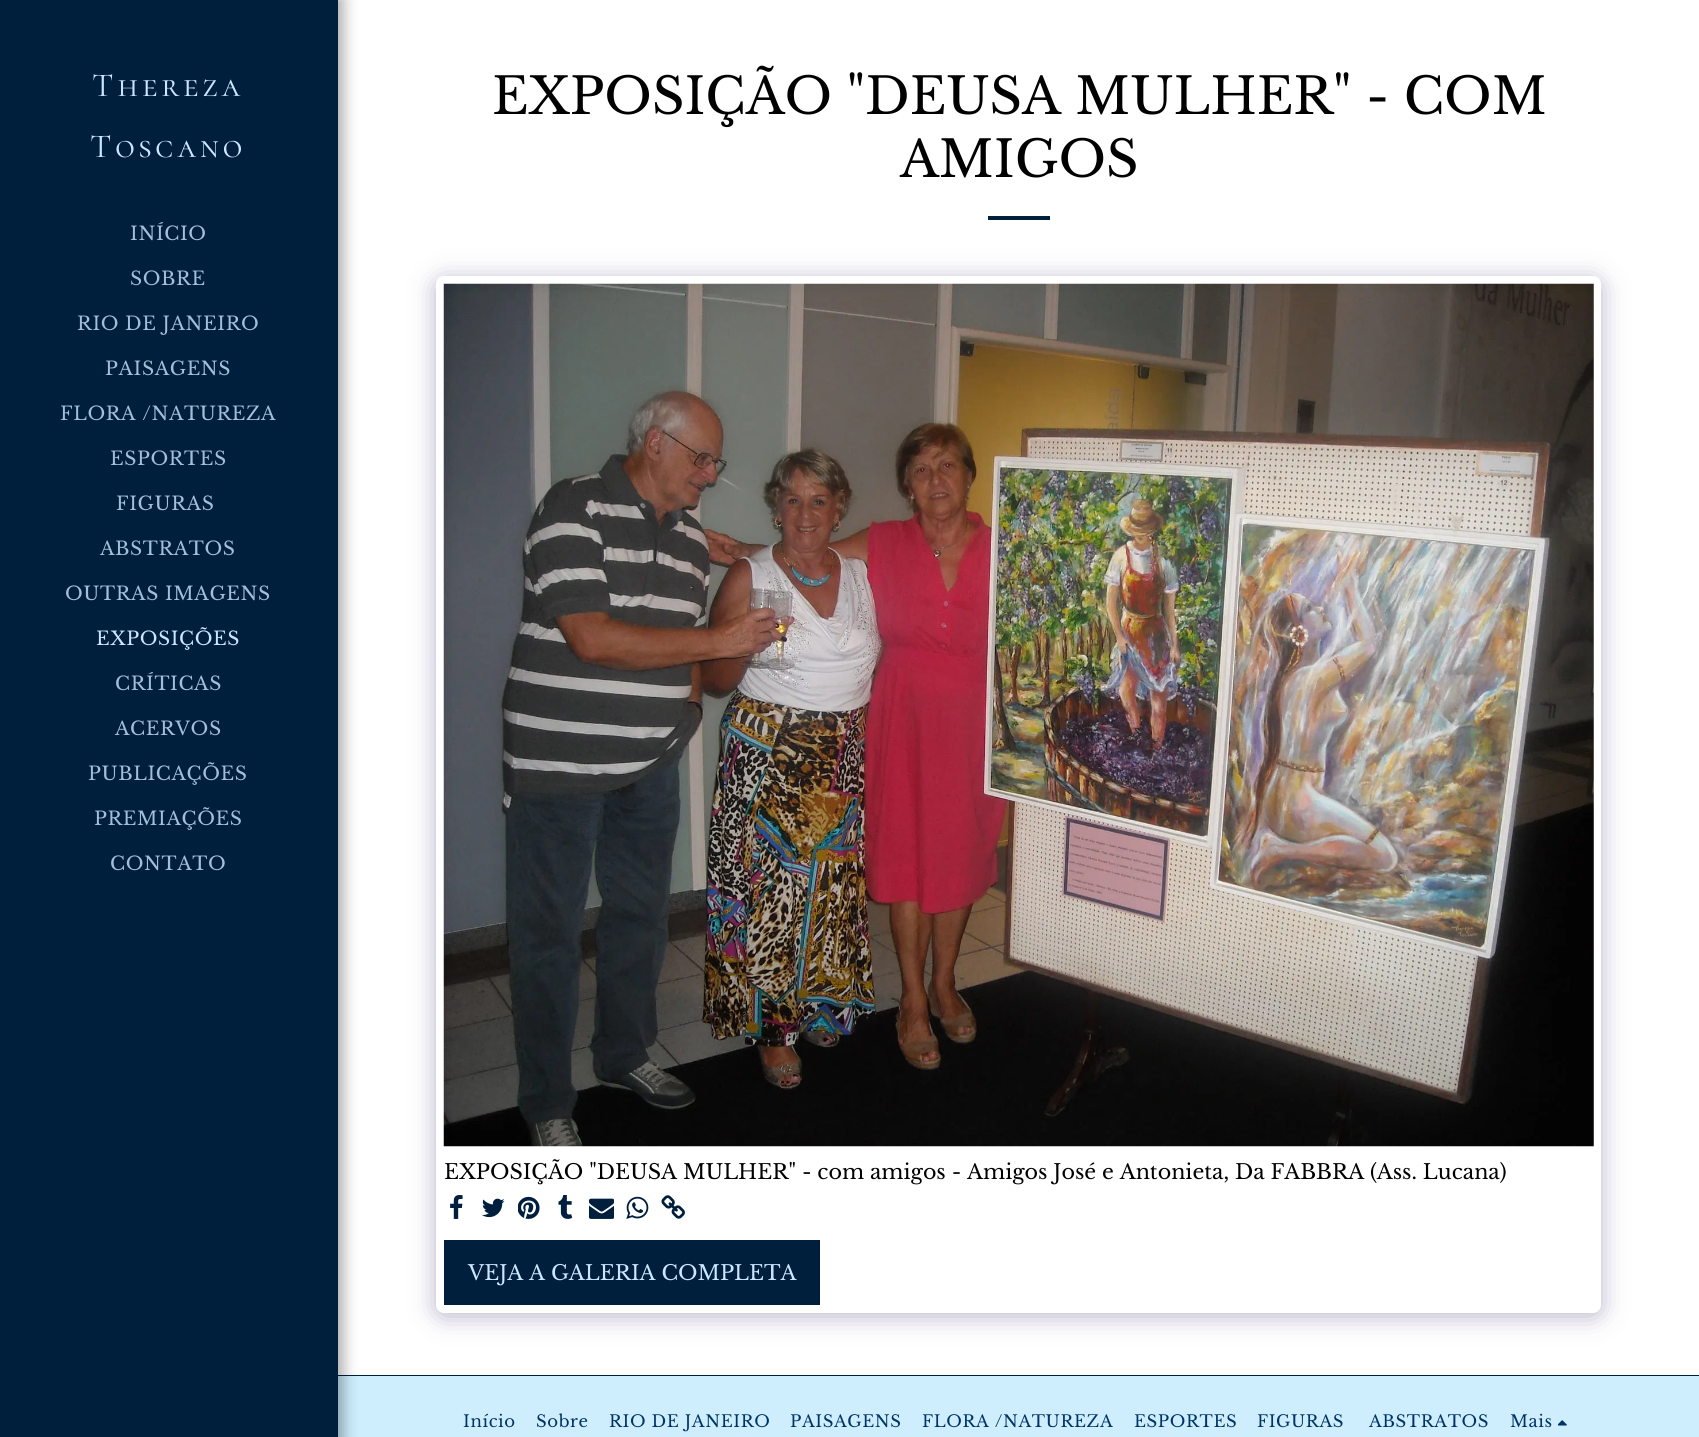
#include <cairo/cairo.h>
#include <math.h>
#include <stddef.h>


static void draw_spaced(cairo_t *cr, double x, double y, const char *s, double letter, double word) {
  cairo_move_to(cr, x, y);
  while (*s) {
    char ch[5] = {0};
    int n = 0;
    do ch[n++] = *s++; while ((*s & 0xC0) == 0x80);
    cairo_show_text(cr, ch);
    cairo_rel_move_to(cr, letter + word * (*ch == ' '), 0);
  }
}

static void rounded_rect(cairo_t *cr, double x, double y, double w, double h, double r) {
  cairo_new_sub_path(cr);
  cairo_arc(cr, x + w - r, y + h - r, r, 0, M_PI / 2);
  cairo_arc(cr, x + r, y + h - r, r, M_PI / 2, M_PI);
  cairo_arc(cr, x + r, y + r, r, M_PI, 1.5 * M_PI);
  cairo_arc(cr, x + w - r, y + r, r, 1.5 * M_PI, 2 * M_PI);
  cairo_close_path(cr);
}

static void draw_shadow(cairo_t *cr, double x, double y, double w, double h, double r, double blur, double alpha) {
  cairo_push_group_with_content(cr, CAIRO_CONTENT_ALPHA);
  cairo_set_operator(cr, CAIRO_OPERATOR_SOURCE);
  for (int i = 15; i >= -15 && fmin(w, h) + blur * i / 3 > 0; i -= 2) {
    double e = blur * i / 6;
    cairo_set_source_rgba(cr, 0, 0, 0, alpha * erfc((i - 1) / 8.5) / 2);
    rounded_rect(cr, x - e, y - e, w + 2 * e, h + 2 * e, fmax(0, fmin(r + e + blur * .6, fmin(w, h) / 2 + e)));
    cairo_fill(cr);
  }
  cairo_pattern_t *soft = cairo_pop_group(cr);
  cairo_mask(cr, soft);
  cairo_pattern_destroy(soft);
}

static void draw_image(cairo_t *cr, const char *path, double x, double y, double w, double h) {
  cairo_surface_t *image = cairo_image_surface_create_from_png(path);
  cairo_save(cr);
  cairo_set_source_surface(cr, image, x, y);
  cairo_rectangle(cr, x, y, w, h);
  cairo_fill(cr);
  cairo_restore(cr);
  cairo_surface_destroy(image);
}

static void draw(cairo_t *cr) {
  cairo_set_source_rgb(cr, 0, 31 / 255.0, 61 / 255.0);
  cairo_paint(cr);
  cairo_set_source_rgb(cr, 1, 1, 1);
  cairo_rectangle(cr, 338, 0, 1361, 1375);
  cairo_fill(cr);
  cairo_set_source_rgb(cr, 206 / 255.0, 238 / 255.0, 253 / 255.0);
  cairo_rectangle(cr, 338, 1376, 1361, 61);
  cairo_fill(cr);
  cairo_set_source_rgb(cr, 0, 0, 0);
  draw_shadow(cr, 0, -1, 343, 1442, 0, 7.5, 0.35);
  cairo_set_source_rgb(cr, 0, 31 / 255.0, 61 / 255.0);
  cairo_rectangle(cr, 0, 0, 338, 1437);
  cairo_fill(cr);
  cairo_rectangle(cr, 988, 216, 62, 4);
  cairo_fill(cr);
  cairo_set_source_rgb(cr, 77 / 255.0, 63 / 255.0, 122 / 255.0);
  draw_shadow(cr, 436, 280, 1165, 1036, 8, 12.5, 0.4);
  cairo_set_source_rgb(cr, 1, 1, 1);
  rounded_rect(cr, 436, 276, 1165, 1037, 8);
  cairo_fill(cr);
  draw_image(cr, "images/1.png", 443, 283, 1151, 864);
  draw_image(cr, "images/2.png", 450, 1195, 13, 24);
  draw_image(cr, "images/3.png", 482, 1198, 23, 20);
  draw_image(cr, "images/4.png", 518, 1196, 22, 23);
  draw_image(cr, "images/5.png", 558, 1195, 15, 24);
  draw_image(cr, "images/6.png", 589, 1198, 25, 21);
  draw_image(cr, "images/7.png", 626, 1196, 23, 23);
  draw_image(cr, "images/8.png", 661, 1195, 24, 24);
  cairo_set_source_rgb(cr, 0, 31 / 255.0, 61 / 255.0);
  cairo_rectangle(cr, 444, 1240, 376, 65);
  cairo_fill(cr);
  draw_image(cr, "images/9.png", 1558, 1420, 9, 6);
  cairo_select_font_face(cr, "Cormorant SC", CAIRO_FONT_SLANT_NORMAL, CAIRO_FONT_WEIGHT_NORMAL);
  cairo_set_font_size(cr, 33.75);
  cairo_set_source_rgb(cr, 204 / 255.0, 230 / 255.0, 1);
  draw_spaced(cr, 92, 96, "Thereza", 3.75, 0);
  draw_spaced(cr, 90, 157, "Toscano", 3.75, 0);
  cairo_select_font_face(cr, "Libre Baskerville", CAIRO_FONT_SLANT_NORMAL, CAIRO_FONT_WEIGHT_NORMAL);
  cairo_set_font_size(cr, 18.75);
  cairo_set_source_rgb(cr, 163 / 255.0, 190 / 255.0, 216 / 255.0);
  draw_spaced(cr, 130, 240, "INÍCIO", 0.6, 0);
  draw_spaced(cr, 130, 285, "SOBRE", 0.6, 0);
  draw_spaced(cr, 77, 330, "RIO DE JANEIRO", 0.6, 0);
  draw_spaced(cr, 105, 375, "PAISAGENS", 0.6, 0);
  draw_spaced(cr, 60, 420, "FLORA /NATUREZA", 0.6, 0);
  draw_spaced(cr, 110, 465, "ESPORTES", 0.6, 0);
  draw_spaced(cr, 116, 510, "FIGURAS", 0.6, 0);
  draw_spaced(cr, 100, 555, "ABSTRATOS", 0.6, 0);
  draw_spaced(cr, 65, 600, "OUTRAS IMAGENS", 0.6, 0);
  cairo_set_source_rgb(cr, 204 / 255.0, 230 / 255.0, 1);
  draw_spaced(cr, 96, 645, "EXPOSIÇÕES", 0.6, 0);
  cairo_set_source_rgb(cr, 163 / 255.0, 190 / 255.0, 216 / 255.0);
  draw_spaced(cr, 115, 690, "CRÍTICAS", 0.6, 0);
  draw_spaced(cr, 115, 735, "ACERVOS", 0.6, 0);
  draw_spaced(cr, 88, 780, "PUBLICAÇÕES", 0.6, 0);
  draw_spaced(cr, 94, 825, "PREMIAÇÕES", 0.6, 0);
  draw_spaced(cr, 110, 870, "CONTATO", 0.6, 0);
  cairo_set_font_size(cr, 50.35);
  cairo_set_source_rgb(cr, 0, 0, 0);
  cairo_move_to(cr, 492, 114);
  cairo_show_text(cr, "EXPOSIÇÃO \"DEUSA MULHER\" - COM");
  cairo_move_to(cr, 900, 177);
  cairo_show_text(cr, "AMIGOS");
  cairo_set_font_size(cr, 20.62);
  cairo_move_to(cr, 444, 1179);
  cairo_show_text(cr, "EXPOSIÇÃO \"DEUSA MULHER\" - com amigos - Amigos José e Antonieta, Da FABBRA (Ass. Lucana)");
  cairo_set_source_rgb(cr, 204 / 255.0, 230 / 255.0, 1);
  cairo_move_to(cr, 468, 1280);
  cairo_show_text(cr, "VEJA A GALERIA COMPLETA");
  cairo_set_font_size(cr, 16.5);
  cairo_set_source_rgb(cr, 0, 52 / 255.0, 102 / 255.0);
  draw_spaced(cr, 463, 1427, "Início", 0.6, 0);
  draw_spaced(cr, 536, 1427, "Sobre", 0.6, 0);
  draw_spaced(cr, 609, 1427, "RIO DE JANEIRO", 0.6, 0);
  draw_spaced(cr, 790, 1427, "PAISAGENS", 0.6, 0);
  draw_spaced(cr, 922, 1427, "FLORA /NATUREZA", 0.6, 0);
  draw_spaced(cr, 1134, 1427, "ESPORTES", 0.6, 0);
  draw_spaced(cr, 1257, 1427, "FIGURAS", 0.6, 0);
  draw_spaced(cr, 1369, 1427, "ABSTRATOS", 0.6, 0);
  draw_spaced(cr, 1510, 1427, "Mais", 0.6, 0);
}

int main(void) {
  cairo_surface_t *surface = cairo_image_surface_create(CAIRO_FORMAT_RGB24, 1699, 1437);
  cairo_t *cr = cairo_create(surface);
  cairo_font_options_t *options = cairo_font_options_create();
  cairo_font_options_set_hint_metrics(options, CAIRO_HINT_METRICS_OFF);
  cairo_font_options_set_hint_style(options, CAIRO_HINT_STYLE_NONE);
  cairo_set_font_options(cr, options);
  cairo_set_miter_limit(cr, 4);
  draw(cr);
  cairo_surface_write_to_png(surface, "out.png");
  cairo_font_options_destroy(options);
  cairo_destroy(cr);
  cairo_surface_destroy(surface);
  return 0;
}
